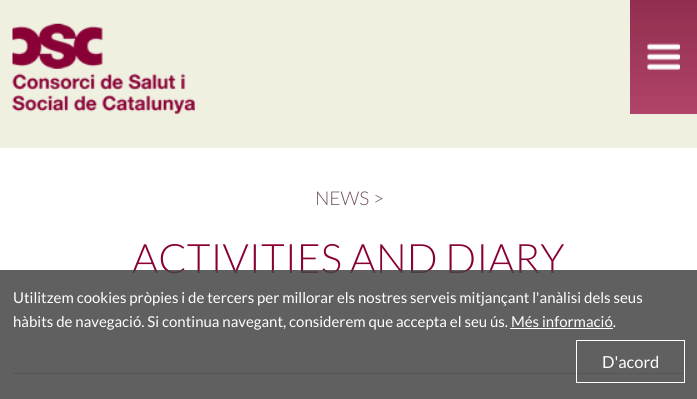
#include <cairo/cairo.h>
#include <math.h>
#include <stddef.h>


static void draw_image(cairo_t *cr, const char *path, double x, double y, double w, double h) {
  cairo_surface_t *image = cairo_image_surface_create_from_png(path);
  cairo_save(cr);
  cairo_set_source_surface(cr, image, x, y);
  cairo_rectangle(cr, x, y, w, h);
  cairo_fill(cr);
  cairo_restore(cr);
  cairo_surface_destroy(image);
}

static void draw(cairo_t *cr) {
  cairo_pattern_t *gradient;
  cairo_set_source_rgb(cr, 1, 1, 1);
  cairo_paint(cr);
  cairo_set_source_rgb(cr, 240 / 255.0, 240 / 255.0, 225 / 255.0);
  cairo_rectangle(cr, 0, 0, 697, 148);
  cairo_fill(cr);
  draw_image(cr, "images/1.png", 12, 23, 183, 91);
  gradient = cairo_pattern_create_linear(664, 0, 664, 114);
  cairo_pattern_add_color_stop_rgba(gradient, 0, 145 / 255.0, 46 / 255.0, 78 / 255.0, 1);
  cairo_pattern_add_color_stop_rgba(gradient, 1, 176 / 255.0, 68 / 255.0, 105 / 255.0, 1);
  cairo_set_source(cr, gradient);
  cairo_pattern_destroy(gradient);
  cairo_rectangle(cr, 630, 0, 67, 114);
  cairo_fill(cr);
  draw_image(cr, "images/2.png", 647, 43, 33, 27);
  cairo_set_source_rgb(cr, 187 / 255.0, 187 / 255.0, 187 / 255.0);
  cairo_rectangle(cr, 13, 373, 672, 1);
  cairo_fill(cr);
  cairo_select_font_face(cr, "Lato Light", CAIRO_FONT_SLANT_NORMAL, CAIRO_FONT_WEIGHT_NORMAL);
  cairo_set_font_size(cr, 19);
  cairo_set_source_rgb(cr, 112 / 255.0, 81 / 255.0, 93 / 255.0);
  cairo_move_to(cr, 315, 205);
  cairo_show_text(cr, "NEWS >");
  cairo_set_font_size(cr, 40.6);
  cairo_set_source_rgb(cr, 136 / 255.0, 0, 54 / 255.0);
  cairo_move_to(cr, 132, 273);
  cairo_show_text(cr, "ACTIVITIES AND DIARY");
  cairo_set_source_rgba(cr, 68 / 255.0, 68 / 255.0, 68 / 255.0, 0.85);
  cairo_rectangle(cr, 0, 270, 697, 129);
  cairo_fill(cr);
  cairo_select_font_face(cr, "Lato", CAIRO_FONT_SLANT_NORMAL, CAIRO_FONT_WEIGHT_NORMAL);
  cairo_set_font_size(cr, 15);
  cairo_set_source_rgb(cr, 1, 1, 1);
  cairo_move_to(cr, 13, 303);
  cairo_show_text(cr, "Utilitzem cookies pròpies i de tercers per millorar els nostres serveis mitjançant l'anàlisi dels seus");
  cairo_move_to(cr, 13, 327);
  cairo_show_text(cr, "hàbits de navegació. Si continua navegant, considerem que accepta el seu ús. Més informació.");
  cairo_rectangle(cr, 510, 328, 103, 1);
  cairo_fill(cr);
  cairo_rectangle(cr, 576.5, 340.5, 108, 42);
  cairo_set_line_width(cr, 1);
  cairo_stroke(cr);
  cairo_set_font_size(cr, 16.5);
  cairo_move_to(cr, 602, 368);
  cairo_show_text(cr, "D'acord");
}

int main(void) {
  cairo_surface_t *surface = cairo_image_surface_create(CAIRO_FORMAT_RGB24, 697, 399);
  cairo_t *cr = cairo_create(surface);
  cairo_font_options_t *options = cairo_font_options_create();
  cairo_font_options_set_hint_metrics(options, CAIRO_HINT_METRICS_OFF);
  cairo_font_options_set_hint_style(options, CAIRO_HINT_STYLE_NONE);
  cairo_set_font_options(cr, options);
  cairo_set_miter_limit(cr, 4);
  draw(cr);
  cairo_surface_write_to_png(surface, "out.png");
  cairo_font_options_destroy(options);
  cairo_destroy(cr);
  cairo_surface_destroy(surface);
  return 0;
}
